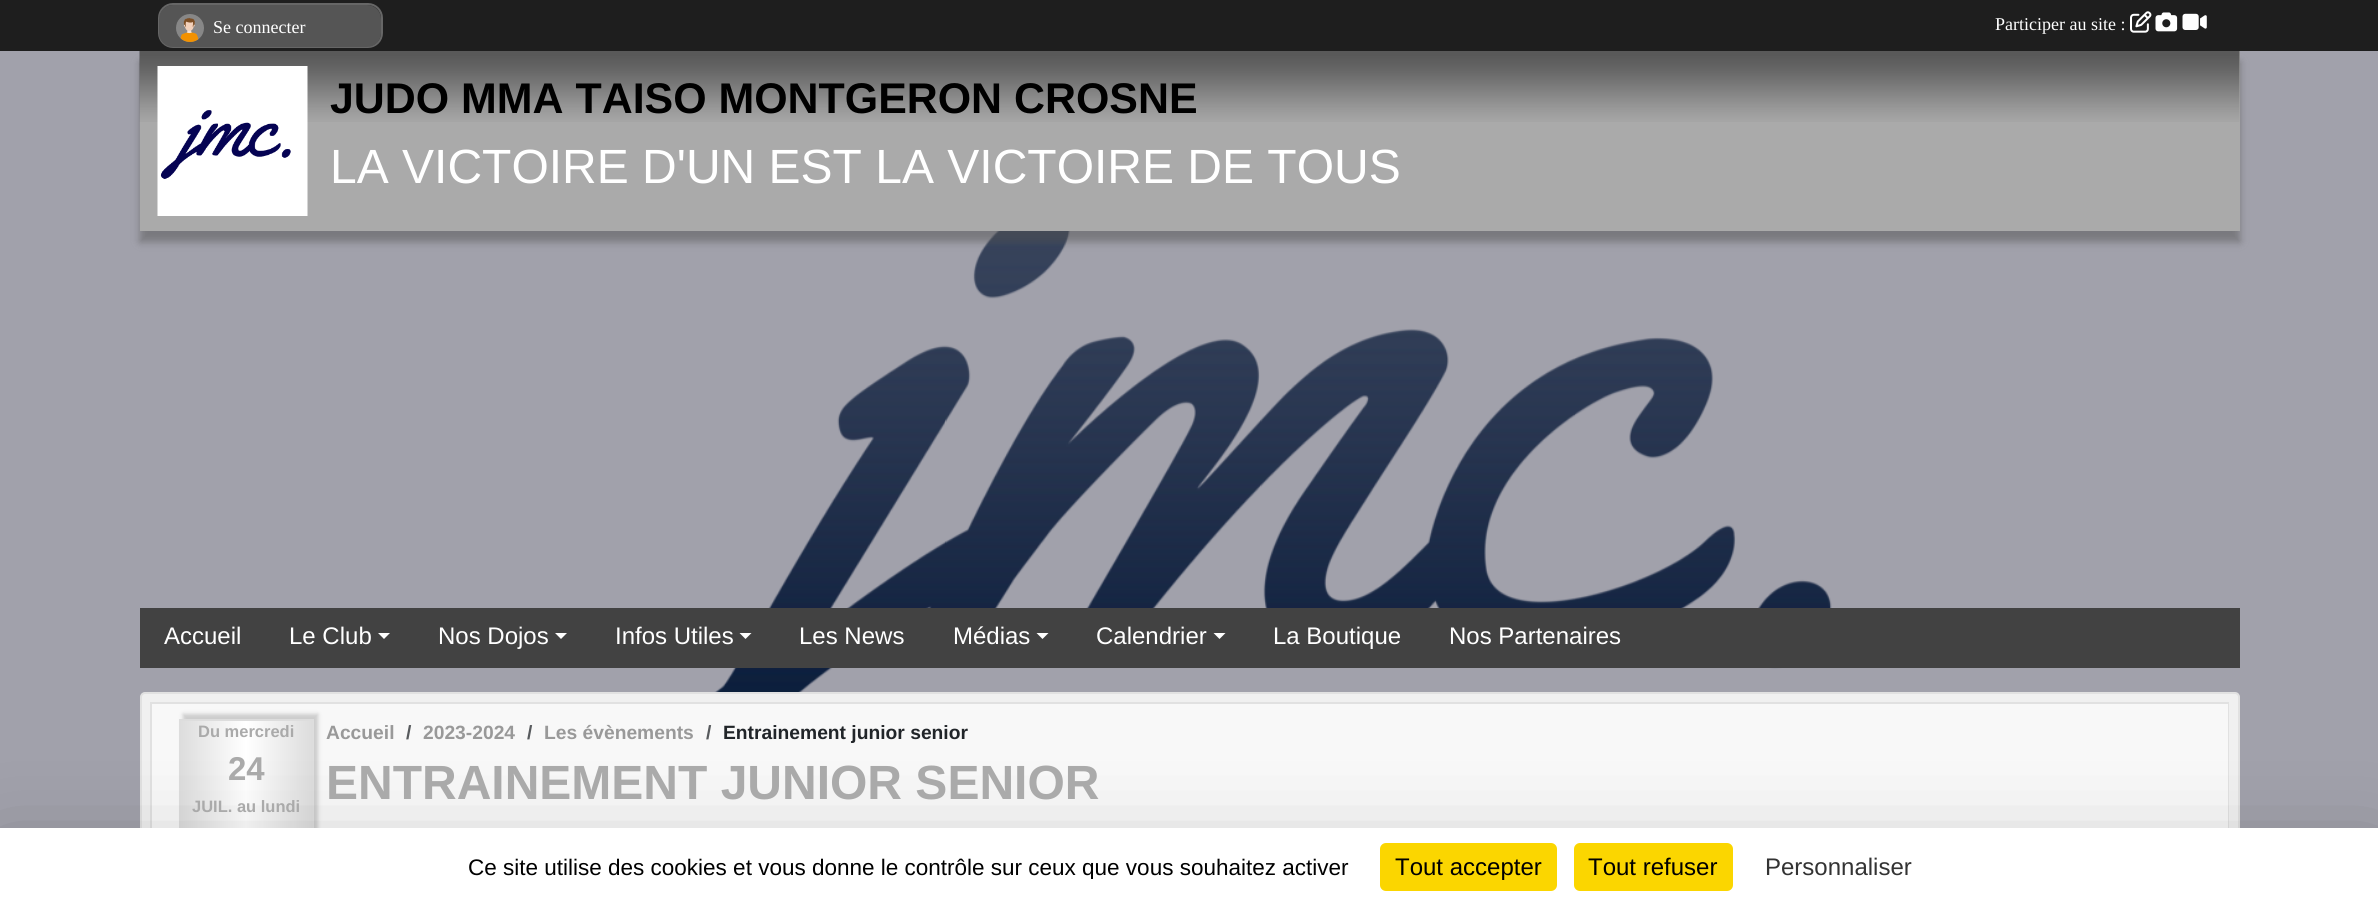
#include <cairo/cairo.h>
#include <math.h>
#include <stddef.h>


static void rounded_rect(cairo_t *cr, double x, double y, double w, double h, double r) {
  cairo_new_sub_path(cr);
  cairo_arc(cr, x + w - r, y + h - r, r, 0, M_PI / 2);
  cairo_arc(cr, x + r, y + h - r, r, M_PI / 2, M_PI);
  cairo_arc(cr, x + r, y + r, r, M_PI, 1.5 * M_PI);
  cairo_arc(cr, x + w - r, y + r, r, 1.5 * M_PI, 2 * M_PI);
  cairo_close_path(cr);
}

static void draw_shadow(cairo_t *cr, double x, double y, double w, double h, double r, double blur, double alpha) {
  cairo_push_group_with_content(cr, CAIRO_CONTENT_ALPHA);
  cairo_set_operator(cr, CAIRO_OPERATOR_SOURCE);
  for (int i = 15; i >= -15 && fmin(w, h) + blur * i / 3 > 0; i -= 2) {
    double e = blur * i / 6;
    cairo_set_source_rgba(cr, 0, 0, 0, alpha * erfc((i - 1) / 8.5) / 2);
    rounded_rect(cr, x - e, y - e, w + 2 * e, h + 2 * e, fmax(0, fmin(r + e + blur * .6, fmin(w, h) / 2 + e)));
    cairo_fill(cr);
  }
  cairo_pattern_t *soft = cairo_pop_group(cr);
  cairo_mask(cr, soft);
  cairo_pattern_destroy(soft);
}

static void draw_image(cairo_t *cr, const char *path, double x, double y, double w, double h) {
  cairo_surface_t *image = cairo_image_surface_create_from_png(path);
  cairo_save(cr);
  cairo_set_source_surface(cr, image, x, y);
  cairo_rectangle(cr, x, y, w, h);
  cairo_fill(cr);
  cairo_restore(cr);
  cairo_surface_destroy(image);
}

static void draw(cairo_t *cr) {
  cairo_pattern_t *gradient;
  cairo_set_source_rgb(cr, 161 / 255.0, 161 / 255.0, 171 / 255.0);
  cairo_paint(cr);
  draw_image(cr, "images/1.png", 714, 231, 1118, 461);
  cairo_set_source_rgb(cr, 80 / 255.0, 80 / 255.0, 80 / 255.0);
  draw_shadow(cr, 140, 62, 2100, 180, 0, 4, 0.5);
  cairo_set_source_rgb(cr, 30 / 255.0, 30 / 255.0, 30 / 255.0);
  cairo_rectangle(cr, 0, 0, 2378, 51);
  cairo_fill(cr);
  cairo_set_source_rgb(cr, 51 / 255.0, 51 / 255.0, 51 / 255.0);
  rounded_rect(cr, 159, 4, 223, 43, 14);
  cairo_fill_preserve(cr);
  cairo_set_source_rgb(cr, 102 / 255.0, 102 / 255.0, 102 / 255.0);
  cairo_stroke(cr);
  cairo_set_source_rgb(cr, 85 / 255.0, 85 / 255.0, 85 / 255.0);
  rounded_rect(cr, 159, 5, 222, 42, 14);
  cairo_fill(cr);
  draw_image(cr, "images/2.png", 176, 14, 28, 28);
  draw_image(cr, "images/3.png", 2130, 11, 22, 22);
  draw_image(cr, "images/4.png", 2155, 12, 23, 20);
  draw_image(cr, "images/5.png", 2182, 13, 25, 17);
  cairo_set_source_rgb(cr, 170 / 255.0, 170 / 255.0, 170 / 255.0);
  cairo_rectangle(cr, 140, 51, 2100, 180);
  cairo_fill(cr);
  draw_image(cr, "images/6.png", 139, 51, 2101, 71);
  draw_image(cr, "images/7.png", 157, 66, 151, 150);
  cairo_set_source_rgb(cr, 66 / 255.0, 66 / 255.0, 66 / 255.0);
  cairo_rectangle(cr, 140, 608, 2100, 60);
  cairo_fill(cr);
  cairo_set_source_rgb(cr, 1, 1, 1);
  cairo_new_path(cr);
  cairo_move_to(cr, 378, 633);
  cairo_line_to(cr, 390, 633);
  cairo_line_to(cr, 384, 639);
  cairo_close_path(cr);
  cairo_fill(cr);
  cairo_new_path(cr);
  cairo_move_to(cr, 555, 633);
  cairo_line_to(cr, 567, 633);
  cairo_line_to(cr, 561, 639);
  cairo_close_path(cr);
  cairo_fill(cr);
  cairo_new_path(cr);
  cairo_move_to(cr, 739.5, 633);
  cairo_line_to(cr, 751.5, 633);
  cairo_line_to(cr, 745.5, 639);
  cairo_close_path(cr);
  cairo_fill(cr);
  cairo_new_path(cr);
  cairo_move_to(cr, 1036.5, 633);
  cairo_line_to(cr, 1048.5, 633);
  cairo_line_to(cr, 1042.5, 639);
  cairo_close_path(cr);
  cairo_fill(cr);
  cairo_new_path(cr);
  cairo_move_to(cr, 1213.5, 633);
  cairo_line_to(cr, 1225.5, 633);
  cairo_line_to(cr, 1219.5, 639);
  cairo_close_path(cr);
  cairo_fill(cr);
  cairo_set_source_rgb(cr, 240 / 255.0, 240 / 255.0, 240 / 255.0);
  rounded_rect(cr, 141, 693, 2098, 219, 4);
  cairo_fill_preserve(cr);
  cairo_set_source_rgb(cr, 225 / 255.0, 225 / 255.0, 225 / 255.0);
  cairo_stroke(cr);
  cairo_rectangle(cr, 151, 703, 2077, 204);
  cairo_stroke(cr);
  cairo_set_source_rgb(cr, 248 / 255.0, 248 / 255.0, 248 / 255.0);
  cairo_rectangle(cr, 152, 704, 2076, 124);
  cairo_fill(cr);
  cairo_set_source_rgb(cr, 204 / 255.0, 204 / 255.0, 204 / 255.0);
  draw_shadow(cr, 183, 714, 135, 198, 0, 2, 1);
  gradient = cairo_pattern_create_linear(48, 829, 180, 829);
  cairo_pattern_add_color_stop_rgba(gradient, 0, 221 / 255.0, 221 / 255.0, 221 / 255.0, 1);
  cairo_pattern_add_color_stop_rgba(gradient, 0.5, 1, 1, 1, 1);
  cairo_pattern_add_color_stop_rgba(gradient, 1, 221 / 255.0, 221 / 255.0, 221 / 255.0, 1);
  cairo_set_source(cr, gradient);
  cairo_pattern_destroy(gradient);
  cairo_rectangle(cr, 179, 719, 1, 109);
  cairo_fill(cr);
  gradient = cairo_pattern_create_linear(180, 829, 312, 829);
  cairo_pattern_add_color_stop_rgba(gradient, 0, 221 / 255.0, 221 / 255.0, 221 / 255.0, 1);
  cairo_pattern_add_color_stop_rgba(gradient, 0.5, 1, 1, 1, 1);
  cairo_pattern_add_color_stop_rgba(gradient, 1, 221 / 255.0, 221 / 255.0, 221 / 255.0, 1);
  cairo_set_source(cr, gradient);
  cairo_pattern_destroy(gradient);
  cairo_rectangle(cr, 180, 721, 132, 107);
  cairo_fill(cr);
  gradient = cairo_pattern_create_linear(312, 829, 444, 829);
  cairo_pattern_add_color_stop_rgba(gradient, 0, 221 / 255.0, 221 / 255.0, 221 / 255.0, 1);
  cairo_pattern_add_color_stop_rgba(gradient, 0.5, 1, 1, 1, 1);
  cairo_pattern_add_color_stop_rgba(gradient, 1, 221 / 255.0, 221 / 255.0, 221 / 255.0, 1);
  cairo_set_source(cr, gradient);
  cairo_pattern_destroy(gradient);
  cairo_rectangle(cr, 312, 719, 2, 109);
  cairo_fill(cr);
  cairo_set_source_rgb(cr, 221 / 255.0, 221 / 255.0, 221 / 255.0);
  cairo_rectangle(cr, 179, 719, 135, 2);
  cairo_fill(cr);
  cairo_set_source_rgb(cr, 0, 0, 0);
  draw_shadow(cr, 0, 858, 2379, 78, 0, 45, 0.25);
  cairo_set_source_rgb(cr, 1, 1, 1);
  cairo_rectangle(cr, 0, 828, 2378, 78);
  cairo_fill(cr);
  cairo_set_source_rgb(cr, 251 / 255.0, 214 / 255.0, 0);
  rounded_rect(cr, 1380, 843, 177, 48, 6);
  cairo_fill(cr);
  rounded_rect(cr, 1574, 843, 159, 48, 6);
  cairo_fill(cr);
  cairo_select_font_face(cr, "Liberation Serif", CAIRO_FONT_SLANT_NORMAL, CAIRO_FONT_WEIGHT_NORMAL);
  cairo_set_font_size(cr, 18);
  cairo_set_source_rgb(cr, 1, 1, 1);
  cairo_move_to(cr, 213, 33);
  cairo_show_text(cr, "Se connecter");
  cairo_move_to(cr, 1995, 30);
  cairo_show_text(cr, "Participer au site :");
  cairo_select_font_face(cr, "Liberation Sans", CAIRO_FONT_SLANT_NORMAL, CAIRO_FONT_WEIGHT_BOLD);
  cairo_set_font_size(cr, 42.9);
  cairo_set_source_rgb(cr, 0, 0, 0);
  cairo_move_to(cr, 330, 113);
  cairo_show_text(cr, "JUDO MMA TAISO MONTGERON CROSNE");
  cairo_select_font_face(cr, "Liberation Sans", CAIRO_FONT_SLANT_NORMAL, CAIRO_FONT_WEIGHT_NORMAL);
  cairo_set_font_size(cr, 48);
  cairo_set_source_rgb(cr, 1, 1, 1);
  cairo_move_to(cr, 330, 183);
  cairo_show_text(cr, "LA VICTOIRE D'UN EST LA VICTOIRE DE TOUS");
  cairo_set_font_size(cr, 24);
  cairo_move_to(cr, 164, 644);
  cairo_show_text(cr, "Accueil");
  cairo_move_to(cr, 289, 644);
  cairo_show_text(cr, "Le Club");
  cairo_move_to(cr, 438, 644);
  cairo_show_text(cr, "Nos Dojos");
  cairo_move_to(cr, 615, 644);
  cairo_show_text(cr, "Infos Utiles");
  cairo_move_to(cr, 799, 644);
  cairo_show_text(cr, "Les News");
  cairo_move_to(cr, 953, 644);
  cairo_show_text(cr, "Médias");
  cairo_move_to(cr, 1096, 644);
  cairo_show_text(cr, "Calendrier");
  cairo_move_to(cr, 1273, 644);
  cairo_show_text(cr, "La Boutique");
  cairo_move_to(cr, 1449, 644);
  cairo_show_text(cr, "Nos Partenaires");
  cairo_select_font_face(cr, "Liberation Sans", CAIRO_FONT_SLANT_NORMAL, CAIRO_FONT_WEIGHT_BOLD);
  cairo_set_font_size(cr, 16.5);
  cairo_set_source_rgb(cr, 170 / 255.0, 170 / 255.0, 170 / 255.0);
  cairo_move_to(cr, 198, 737);
  cairo_show_text(cr, "Du mercredi");
  cairo_set_font_size(cr, 33);
  cairo_move_to(cr, 228, 780);
  cairo_show_text(cr, "24");
  cairo_set_font_size(cr, 16.5);
  cairo_move_to(cr, 192, 812);
  cairo_show_text(cr, "JUIL. au lundi");
  cairo_set_font_size(cr, 19.25);
  cairo_set_source_rgb(cr, 153 / 255.0, 153 / 255.0, 153 / 255.0);
  cairo_move_to(cr, 326, 739);
  cairo_show_text(cr, "Accueil");
  cairo_set_source_rgb(cr, 87 / 255.0, 90 / 255.0, 93 / 255.0);
  cairo_move_to(cr, 406, 739);
  cairo_show_text(cr, "/");
  cairo_set_source_rgb(cr, 153 / 255.0, 153 / 255.0, 153 / 255.0);
  cairo_move_to(cr, 423, 739);
  cairo_show_text(cr, "2023-2024");
  cairo_set_source_rgb(cr, 87 / 255.0, 90 / 255.0, 93 / 255.0);
  cairo_move_to(cr, 527, 739);
  cairo_show_text(cr, "/");
  cairo_set_source_rgb(cr, 153 / 255.0, 153 / 255.0, 153 / 255.0);
  cairo_move_to(cr, 544, 739);
  cairo_show_text(cr, "Les évènements");
  cairo_set_source_rgb(cr, 87 / 255.0, 90 / 255.0, 93 / 255.0);
  cairo_move_to(cr, 706, 739);
  cairo_show_text(cr, "/");
  cairo_set_source_rgb(cr, 33 / 255.0, 37 / 255.0, 41 / 255.0);
  cairo_move_to(cr, 723, 739);
  cairo_show_text(cr, "Entrainement junior senior");
  cairo_set_font_size(cr, 48);
  cairo_set_source_rgb(cr, 170 / 255.0, 170 / 255.0, 170 / 255.0);
  cairo_move_to(cr, 326, 799);
  cairo_show_text(cr, "ENTRAINEMENT JUNIOR SENIOR");
  cairo_save(cr);
  cairo_rectangle(cr, 453, 854, 911, 25);
  cairo_clip(cr);
  cairo_select_font_face(cr, "Liberation Sans", CAIRO_FONT_SLANT_NORMAL, CAIRO_FONT_WEIGHT_NORMAL);
  cairo_set_font_size(cr, 22.5);
  cairo_set_source_rgb(cr, 0, 0, 0);
  cairo_move_to(cr, 468, 875);
  cairo_show_text(cr, "Ce site utilise des cookies et vous donne le contrôle sur ceux que vous souhaitez activer");
  cairo_restore(cr);
  cairo_select_font_face(cr, "Liberation Sans", CAIRO_FONT_SLANT_NORMAL, CAIRO_FONT_WEIGHT_NORMAL);
  cairo_set_font_size(cr, 24);
  cairo_set_source_rgb(cr, 0, 0, 0);
  cairo_move_to(cr, 1395, 875);
  cairo_show_text(cr, "Tout accepter");
  cairo_move_to(cr, 1588, 875);
  cairo_show_text(cr, "Tout refuser");
  cairo_set_source_rgb(cr, 51 / 255.0, 51 / 255.0, 51 / 255.0);
  cairo_move_to(cr, 1765, 875);
  cairo_show_text(cr, "Personnaliser");
}

int main(void) {
  cairo_surface_t *surface = cairo_image_surface_create(CAIRO_FORMAT_RGB24, 2378, 906);
  cairo_t *cr = cairo_create(surface);
  cairo_font_options_t *options = cairo_font_options_create();
  cairo_font_options_set_hint_metrics(options, CAIRO_HINT_METRICS_OFF);
  cairo_font_options_set_hint_style(options, CAIRO_HINT_STYLE_NONE);
  cairo_set_font_options(cr, options);
  cairo_set_miter_limit(cr, 4);
  draw(cr);
  cairo_surface_write_to_png(surface, "out.png");
  cairo_font_options_destroy(options);
  cairo_destroy(cr);
  cairo_surface_destroy(surface);
  return 0;
}
